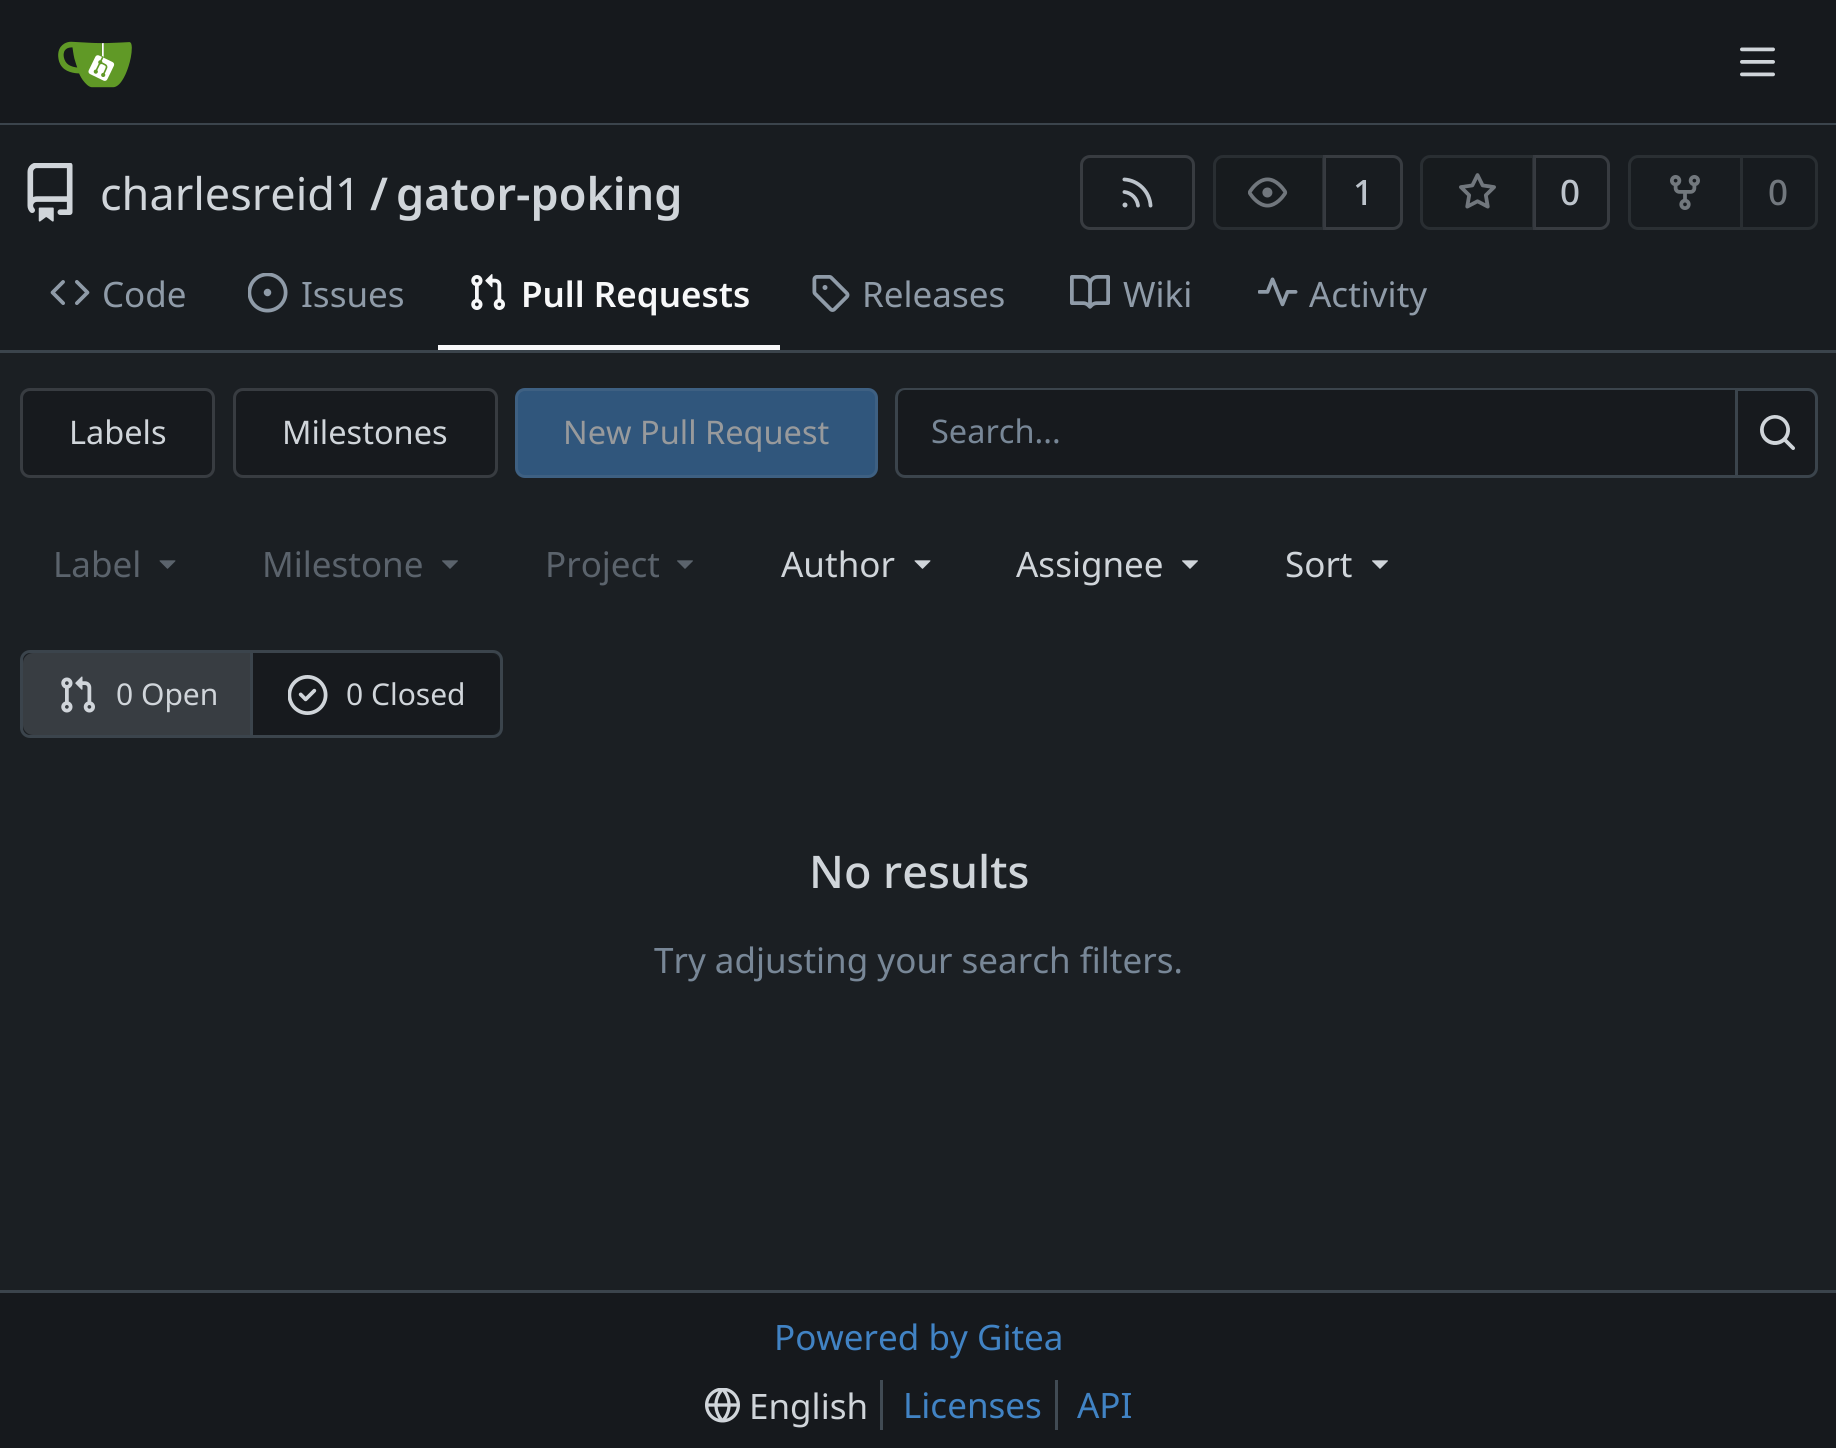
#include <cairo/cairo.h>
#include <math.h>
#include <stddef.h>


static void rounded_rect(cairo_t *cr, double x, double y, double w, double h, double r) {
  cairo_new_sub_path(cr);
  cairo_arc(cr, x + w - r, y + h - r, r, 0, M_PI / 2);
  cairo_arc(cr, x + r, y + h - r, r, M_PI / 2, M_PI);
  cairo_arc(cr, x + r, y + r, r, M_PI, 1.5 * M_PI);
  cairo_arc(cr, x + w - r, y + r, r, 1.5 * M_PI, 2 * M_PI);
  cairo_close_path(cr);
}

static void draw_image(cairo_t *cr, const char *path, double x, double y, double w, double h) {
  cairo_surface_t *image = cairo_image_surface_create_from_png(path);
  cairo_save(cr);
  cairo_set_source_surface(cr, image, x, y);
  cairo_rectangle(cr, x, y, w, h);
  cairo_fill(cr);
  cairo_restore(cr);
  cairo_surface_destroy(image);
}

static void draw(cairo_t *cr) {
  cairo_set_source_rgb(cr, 27 / 255.0, 31 / 255.0, 35 / 255.0);
  cairo_paint(cr);
  cairo_set_source_rgb(cr, 22 / 255.0, 25 / 255.0, 29 / 255.0);
  cairo_rectangle(cr, 0, 0, 1836, 123);
  cairo_fill(cr);
  cairo_set_source_rgb(cr, 59 / 255.0, 68 / 255.0, 76 / 255.0);
  cairo_rectangle(cr, 0, 123, 1836, 2);
  cairo_fill(cr);
  draw_image(cr, "images/1.png", 58, 41, 74, 47);
  draw_image(cr, "images/2.png", 1740, 47, 35, 30);
  cairo_set_source_rgb(cr, 24 / 255.0, 28 / 255.0, 32 / 255.0);
  cairo_rectangle(cr, 0, 125, 1836, 225);
  cairo_fill(cr);
  draw_image(cr, "images/3.png", 27, 163, 46, 59);
  rounded_rect(cr, 1081.5, 156.5, 112, 72, 8.5);
  cairo_set_source_rgb(cr, 56 / 255.0, 60 / 255.0, 65 / 255.0);
  cairo_set_line_width(cr, 3);
  cairo_stroke(cr);
  draw_image(cr, "images/4.png", 1122, 177, 31, 31);
  cairo_new_path(cr);
  cairo_move_to(cr, 1324.5, 156.5);
  cairo_line_to(cr, 1393, 156.5);
  cairo_curve_to(cr, 1397.5, 156.5, 1401.5, 160.5, 1401.5, 165);
  cairo_line_to(cr, 1401.5, 220);
  cairo_curve_to(cr, 1401.5, 224.5, 1397.5, 228.5, 1393, 228.5);
  cairo_line_to(cr, 1324.5, 228.5);
  cairo_close_path(cr);
  cairo_stroke(cr);
  cairo_set_source_rgba(cr, 23 / 255.0, 26 / 255.0, 30 / 255.0, 0.55);
  cairo_new_path(cr);
  cairo_move_to(cr, 1223, 155);
  cairo_line_to(cr, 1325, 155);
  cairo_line_to(cr, 1325, 230);
  cairo_line_to(cr, 1223, 230);
  cairo_curve_to(cr, 1217.5, 230, 1213, 225.5, 1213, 220);
  cairo_line_to(cr, 1213, 165);
  cairo_curve_to(cr, 1213, 159.5, 1217.5, 155, 1223, 155);
  cairo_close_path(cr);
  cairo_fill(cr);
  cairo_new_path(cr);
  cairo_move_to(cr, 1223, 156.5);
  cairo_line_to(cr, 1323.5, 156.5);
  cairo_line_to(cr, 1323.5, 228.5);
  cairo_line_to(cr, 1223, 228.5);
  cairo_curve_to(cr, 1218.5, 228.5, 1214.5, 224.5, 1214.5, 220);
  cairo_line_to(cr, 1214.5, 165);
  cairo_curve_to(cr, 1214.5, 160.5, 1218.5, 156.5, 1223, 156.5);
  cairo_close_path(cr);
  cairo_set_source_rgba(cr, 232 / 255.0, 243 / 255.0, 1, 0.09);
  cairo_stroke(cr);
  draw_image(cr, "images/5.png", 1248, 177, 40, 31);
  cairo_new_path(cr);
  cairo_move_to(cr, 1534.5, 156.5);
  cairo_line_to(cr, 1600, 156.5);
  cairo_curve_to(cr, 1604.5, 156.5, 1608.5, 160.5, 1608.5, 165);
  cairo_line_to(cr, 1608.5, 220);
  cairo_curve_to(cr, 1608.5, 224.5, 1604.5, 228.5, 1600, 228.5);
  cairo_line_to(cr, 1534.5, 228.5);
  cairo_close_path(cr);
  cairo_set_source_rgb(cr, 56 / 255.0, 60 / 255.0, 65 / 255.0);
  cairo_stroke(cr);
  cairo_set_source_rgba(cr, 23 / 255.0, 26 / 255.0, 30 / 255.0, 0.55);
  cairo_new_path(cr);
  cairo_move_to(cr, 1430, 155);
  cairo_line_to(cr, 1535, 155);
  cairo_line_to(cr, 1535, 230);
  cairo_line_to(cr, 1430, 230);
  cairo_curve_to(cr, 1424.5, 230, 1420, 225.5, 1420, 220);
  cairo_line_to(cr, 1420, 165);
  cairo_curve_to(cr, 1420, 159.5, 1424.5, 155, 1430, 155);
  cairo_close_path(cr);
  cairo_fill(cr);
  cairo_new_path(cr);
  cairo_move_to(cr, 1430, 156.5);
  cairo_line_to(cr, 1533.5, 156.5);
  cairo_line_to(cr, 1533.5, 228.5);
  cairo_line_to(cr, 1430, 228.5);
  cairo_curve_to(cr, 1425.5, 228.5, 1421.5, 224.5, 1421.5, 220);
  cairo_line_to(cr, 1421.5, 165);
  cairo_curve_to(cr, 1421.5, 160.5, 1425.5, 156.5, 1430, 156.5);
  cairo_close_path(cr);
  cairo_set_source_rgba(cr, 232 / 255.0, 243 / 255.0, 1, 0.09);
  cairo_stroke(cr);
  draw_image(cr, "images/6.png", 1459, 173, 37, 36);
  cairo_new_path(cr);
  cairo_move_to(cr, 1638, 156.5);
  cairo_line_to(cr, 1741.5, 156.5);
  cairo_line_to(cr, 1741.5, 228.5);
  cairo_line_to(cr, 1638, 228.5);
  cairo_curve_to(cr, 1633.5, 228.5, 1629.5, 224.5, 1629.5, 220);
  cairo_line_to(cr, 1629.5, 165);
  cairo_curve_to(cr, 1629.5, 160.5, 1633.5, 156.5, 1638, 156.5);
  cairo_close_path(cr);
  cairo_set_source_rgb(cr, 42 / 255.0, 47 / 255.0, 51 / 255.0);
  cairo_stroke(cr);
  draw_image(cr, "images/7.png", 1670, 175, 30, 35);
  cairo_set_source_rgb(cr, 23 / 255.0, 27 / 255.0, 31 / 255.0);
  cairo_new_path(cr);
  cairo_move_to(cr, 1741.5, 156.5);
  cairo_line_to(cr, 1808, 156.5);
  cairo_curve_to(cr, 1812.5, 156.5, 1816.5, 160.5, 1816.5, 165);
  cairo_line_to(cr, 1816.5, 220);
  cairo_curve_to(cr, 1816.5, 224.5, 1812.5, 228.5, 1808, 228.5);
  cairo_line_to(cr, 1741.5, 228.5);
  cairo_close_path(cr);
  cairo_fill_preserve(cr);
  cairo_set_source_rgb(cr, 41 / 255.0, 46 / 255.0, 50 / 255.0);
  cairo_stroke(cr);
  draw_image(cr, "images/8.png", 50, 280, 40, 25);
  draw_image(cr, "images/9.png", 248, 273, 40, 40);
  cairo_set_source_rgb(cr, 247 / 255.0, 248 / 255.0, 249 / 255.0);
  cairo_rectangle(cr, 438, 345, 342, 5);
  cairo_fill(cr);
  draw_image(cr, "images/10.png", 471, 274, 34, 36);
  draw_image(cr, "images/11.png", 812, 275, 38, 37);
  draw_image(cr, "images/12.png", 1070, 275, 40, 34);
  draw_image(cr, "images/13.png", 1258, 277, 40, 30);
  cairo_set_source_rgb(cr, 59 / 255.0, 68 / 255.0, 76 / 255.0);
  cairo_rectangle(cr, 0, 350, 1836, 3);
  cairo_fill(cr);
  cairo_set_source_rgb(cr, 23 / 255.0, 26 / 255.0, 30 / 255.0);
  rounded_rect(cr, 21.5, 389.5, 192, 87, 8.5);
  cairo_fill_preserve(cr);
  cairo_set_source_rgb(cr, 56 / 255.0, 60 / 255.0, 65 / 255.0);
  cairo_stroke(cr);
  cairo_set_source_rgb(cr, 23 / 255.0, 26 / 255.0, 30 / 255.0);
  rounded_rect(cr, 234.5, 389.5, 262, 87, 8.5);
  cairo_fill_preserve(cr);
  cairo_set_source_rgb(cr, 56 / 255.0, 60 / 255.0, 65 / 255.0);
  cairo_stroke(cr);
  cairo_set_source_rgb(cr, 48 / 255.0, 86 / 255.0, 124 / 255.0);
  rounded_rect(cr, 515, 388, 363, 90, 10);
  cairo_fill(cr);
  rounded_rect(cr, 516.5, 389.5, 360, 87, 8.5);
  cairo_set_source_rgba(cr, 140 / 255.0, 148 / 255.0, 156 / 255.0, 0.16);
  cairo_stroke(cr);
  cairo_set_source_rgb(cr, 23 / 255.0, 26 / 255.0, 30 / 255.0);
  cairo_new_path(cr);
  cairo_move_to(cr, 905, 388);
  cairo_line_to(cr, 1735, 388);
  cairo_line_to(cr, 1735, 478);
  cairo_line_to(cr, 905, 478);
  cairo_curve_to(cr, 899.5, 478, 895, 473.5, 895, 468);
  cairo_line_to(cr, 895, 398);
  cairo_curve_to(cr, 895, 392.5, 899.5, 388, 905, 388);
  cairo_close_path(cr);
  cairo_fill(cr);
  cairo_set_source_rgb(cr, 59 / 255.0, 68 / 255.0, 76 / 255.0);
  cairo_set_fill_rule(cr, CAIRO_FILL_RULE_EVEN_ODD);
  cairo_new_path(cr);
  cairo_move_to(cr, 905, 388);
  cairo_line_to(cr, 1735, 388);
  cairo_line_to(cr, 1735, 478);
  cairo_line_to(cr, 905, 478);
  cairo_curve_to(cr, 899, 478, 895, 473, 895, 468);
  cairo_line_to(cr, 895, 398);
  cairo_curve_to(cr, 895, 392, 899, 388, 905, 388);
  cairo_close_path(cr);
  cairo_move_to(cr, 905, 390);
  cairo_line_to(cr, 1735, 390);
  cairo_line_to(cr, 1735, 475);
  cairo_line_to(cr, 905, 475);
  cairo_curve_to(cr, 901, 475, 898, 472, 898, 468);
  cairo_line_to(cr, 898, 398);
  cairo_curve_to(cr, 898, 393, 901, 390, 905, 390);
  cairo_close_path(cr);
  cairo_fill(cr);
  cairo_set_source_rgb(cr, 23 / 255.0, 26 / 255.0, 30 / 255.0);
  cairo_new_path(cr);
  cairo_move_to(cr, 1736.5, 389.5);
  cairo_line_to(cr, 1808, 389.5);
  cairo_curve_to(cr, 1812.5, 389.5, 1816.5, 393.5, 1816.5, 398);
  cairo_line_to(cr, 1816.5, 468);
  cairo_curve_to(cr, 1816.5, 472.5, 1812.5, 476.5, 1808, 476.5);
  cairo_line_to(cr, 1736.5, 476.5);
  cairo_close_path(cr);
  cairo_fill_preserve(cr);
  cairo_set_source_rgb(cr, 59 / 255.0, 68 / 255.0, 76 / 255.0);
  cairo_stroke(cr);
  draw_image(cr, "images/14.png", 1760, 415, 35, 35);
  draw_image(cr, "images/15.png", 159, 560, 17, 9);
  draw_image(cr, "images/16.png", 442, 560, 16, 9);
  draw_image(cr, "images/16.png", 677, 560, 16, 9);
  draw_image(cr, "images/17.png", 914, 560, 17, 9);
  draw_image(cr, "images/18.png", 1182, 560, 16, 9);
  draw_image(cr, "images/18.png", 1372, 560, 16, 9);
  rounded_rect(cr, 21.5, 651.5, 480, 85, 8.5);
  cairo_stroke(cr);
  cairo_set_source_rgb(cr, 56 / 255.0, 61 / 255.0, 66 / 255.0);
  cairo_new_path(cr);
  cairo_move_to(cr, 33, 653);
  cairo_line_to(cr, 253, 653);
  cairo_line_to(cr, 253, 735);
  cairo_line_to(cr, 33, 735);
  cairo_curve_to(cr, 27.5, 735, 23, 730.5, 23, 725);
  cairo_line_to(cr, 23, 663);
  cairo_curve_to(cr, 23, 657.5, 27.5, 653, 33, 653);
  cairo_close_path(cr);
  cairo_fill(cr);
  draw_image(cr, "images/19.png", 61, 676, 34, 37);
  cairo_set_source_rgb(cr, 59 / 255.0, 68 / 255.0, 76 / 255.0);
  cairo_rectangle(cr, 250, 653, 3, 82);
  cairo_fill(cr);
  cairo_set_source_rgb(cr, 23 / 255.0, 26 / 255.0, 30 / 255.0);
  cairo_new_path(cr);
  cairo_move_to(cr, 253, 653);
  cairo_line_to(cr, 490, 653);
  cairo_curve_to(cr, 495.5, 653, 500, 657.5, 500, 663);
  cairo_line_to(cr, 500, 725);
  cairo_curve_to(cr, 500, 730.5, 495.5, 735, 490, 735);
  cairo_line_to(cr, 253, 735);
  cairo_close_path(cr);
  cairo_fill(cr);
  draw_image(cr, "images/20.png", 288, 675, 40, 40);
  cairo_set_source_rgb(cr, 22 / 255.0, 25 / 255.0, 29 / 255.0);
  cairo_rectangle(cr, 0, 1293, 1836, 155);
  cairo_fill(cr);
  cairo_set_source_rgb(cr, 59 / 255.0, 68 / 255.0, 76 / 255.0);
  cairo_rectangle(cr, 0, 1290, 1836, 3);
  cairo_fill(cr);
  draw_image(cr, "images/21.png", 705, 1388, 35, 35);
  cairo_set_source_rgb(cr, 65 / 255.0, 75 / 255.0, 84 / 255.0);
  cairo_rectangle(cr, 880, 1380, 3, 50);
  cairo_fill(cr);
  cairo_rectangle(cr, 1055, 1380, 3, 50);
  cairo_fill(cr);
  cairo_select_font_face(cr, "Noto Sans", CAIRO_FONT_SLANT_NORMAL, CAIRO_FONT_WEIGHT_NORMAL);
  cairo_set_font_size(cr, 45);
  cairo_set_source_rgb(cr, 208 / 255.0, 213 / 255.0, 218 / 255.0);
  cairo_move_to(cr, 100, 210);
  cairo_show_text(cr, "charlesreid1");
  cairo_select_font_face(cr, "Noto Sans SemiBold", CAIRO_FONT_SLANT_NORMAL, CAIRO_FONT_WEIGHT_NORMAL);
  cairo_move_to(cr, 370, 210);
  cairo_show_text(cr, "/");
  cairo_move_to(cr, 396, 210);
  cairo_show_text(cr, "gator-poking");
  cairo_select_font_face(cr, "Noto Sans Medium", CAIRO_FONT_SLANT_NORMAL, CAIRO_FONT_WEIGHT_NORMAL);
  cairo_set_font_size(cr, 35);
  cairo_set_source_rgb(cr, 188 / 255.0, 195 / 255.0, 203 / 255.0);
  cairo_move_to(cr, 1353, 205);
  cairo_show_text(cr, "1");
  cairo_move_to(cr, 1560, 205);
  cairo_show_text(cr, "0");
  cairo_set_source_rgb(cr, 114 / 255.0, 120 / 255.0, 126 / 255.0);
  cairo_move_to(cr, 1768, 205);
  cairo_show_text(cr, "0");
  cairo_select_font_face(cr, "Noto Sans", CAIRO_FONT_SLANT_NORMAL, CAIRO_FONT_WEIGHT_NORMAL);
  cairo_set_source_rgb(cr, 143 / 255.0, 155 / 255.0, 168 / 255.0);
  cairo_move_to(cr, 102, 307);
  cairo_show_text(cr, "Code");
  cairo_move_to(cr, 301, 307);
  cairo_show_text(cr, "Issues");
  cairo_select_font_face(cr, "Noto Sans SemiBold", CAIRO_FONT_SLANT_NORMAL, CAIRO_FONT_WEIGHT_NORMAL);
  cairo_set_source_rgb(cr, 247 / 255.0, 248 / 255.0, 249 / 255.0);
  cairo_move_to(cr, 521, 307);
  cairo_show_text(cr, "Pull Requests");
  cairo_select_font_face(cr, "Noto Sans", CAIRO_FONT_SLANT_NORMAL, CAIRO_FONT_WEIGHT_NORMAL);
  cairo_set_source_rgb(cr, 143 / 255.0, 155 / 255.0, 168 / 255.0);
  cairo_move_to(cr, 862, 307);
  cairo_show_text(cr, "Releases");
  cairo_move_to(cr, 1123, 307);
  cairo_show_text(cr, "Wiki");
  cairo_move_to(cr, 1309, 307);
  cairo_show_text(cr, "Activity");
  cairo_set_font_size(cr, 32.5);
  cairo_set_source_rgb(cr, 208 / 255.0, 213 / 255.0, 218 / 255.0);
  cairo_move_to(cr, 69, 444);
  cairo_show_text(cr, "Labels");
  cairo_move_to(cr, 282, 444);
  cairo_show_text(cr, "Milestones");
  cairo_set_source_rgb(cr, 152 / 255.0, 154 / 255.0, 156 / 255.0);
  cairo_move_to(cr, 563, 444);
  cairo_show_text(cr, "New Pull Request");
  cairo_set_source_rgb(cr, 120 / 255.0, 135 / 255.0, 151 / 255.0);
  cairo_move_to(cr, 931, 443);
  cairo_show_text(cr, "Search...");
  cairo_set_font_size(cr, 35);
  cairo_set_source_rgb(cr, 91 / 255.0, 99 / 255.0, 108 / 255.0);
  cairo_move_to(cr, 53, 577);
  cairo_show_text(cr, "Label");
  cairo_move_to(cr, 262, 577);
  cairo_show_text(cr, "Milestone");
  cairo_move_to(cr, 545, 577);
  cairo_show_text(cr, "Project");
  cairo_set_source_rgb(cr, 208 / 255.0, 213 / 255.0, 218 / 255.0);
  cairo_move_to(cr, 781, 577);
  cairo_show_text(cr, "Author");
  cairo_move_to(cr, 1016, 577);
  cairo_show_text(cr, "Assignee");
  cairo_move_to(cr, 1285, 577);
  cairo_show_text(cr, "Sort");
  cairo_set_font_size(cr, 30);
  cairo_move_to(cr, 116, 705);
  cairo_show_text(cr, "0 Open");
  cairo_move_to(cr, 346, 705);
  cairo_show_text(cr, "0 Closed");
  cairo_select_font_face(cr, "Noto Sans Medium", CAIRO_FONT_SLANT_NORMAL, CAIRO_FONT_WEIGHT_NORMAL);
  cairo_set_font_size(cr, 45);
  cairo_move_to(cr, 809, 888);
  cairo_show_text(cr, "No results");
  cairo_select_font_face(cr, "Noto Sans", CAIRO_FONT_SLANT_NORMAL, CAIRO_FONT_WEIGHT_NORMAL);
  cairo_set_font_size(cr, 35);
  cairo_set_source_rgb(cr, 120 / 255.0, 135 / 255.0, 151 / 255.0);
  cairo_move_to(cr, 654, 973);
  cairo_show_text(cr, "Try adjusting your search filters.");
  cairo_set_source_rgb(cr, 65 / 255.0, 131 / 255.0, 196 / 255.0);
  cairo_move_to(cr, 774, 1350);
  cairo_show_text(cr, "Powered by Gitea");
  cairo_set_source_rgb(cr, 208 / 255.0, 213 / 255.0, 218 / 255.0);
  cairo_move_to(cr, 749, 1419);
  cairo_show_text(cr, "English");
  cairo_set_source_rgb(cr, 65 / 255.0, 131 / 255.0, 196 / 255.0);
  cairo_move_to(cr, 903, 1418);
  cairo_show_text(cr, "Licenses");
  cairo_move_to(cr, 1077, 1418);
  cairo_show_text(cr, "API");
}

int main(void) {
  cairo_surface_t *surface = cairo_image_surface_create(CAIRO_FORMAT_RGB24, 1836, 1448);
  cairo_t *cr = cairo_create(surface);
  cairo_font_options_t *options = cairo_font_options_create();
  cairo_font_options_set_hint_metrics(options, CAIRO_HINT_METRICS_OFF);
  cairo_font_options_set_hint_style(options, CAIRO_HINT_STYLE_NONE);
  cairo_set_font_options(cr, options);
  cairo_set_miter_limit(cr, 4);
  draw(cr);
  cairo_surface_write_to_png(surface, "out.png");
  cairo_font_options_destroy(options);
  cairo_destroy(cr);
  cairo_surface_destroy(surface);
  return 0;
}
